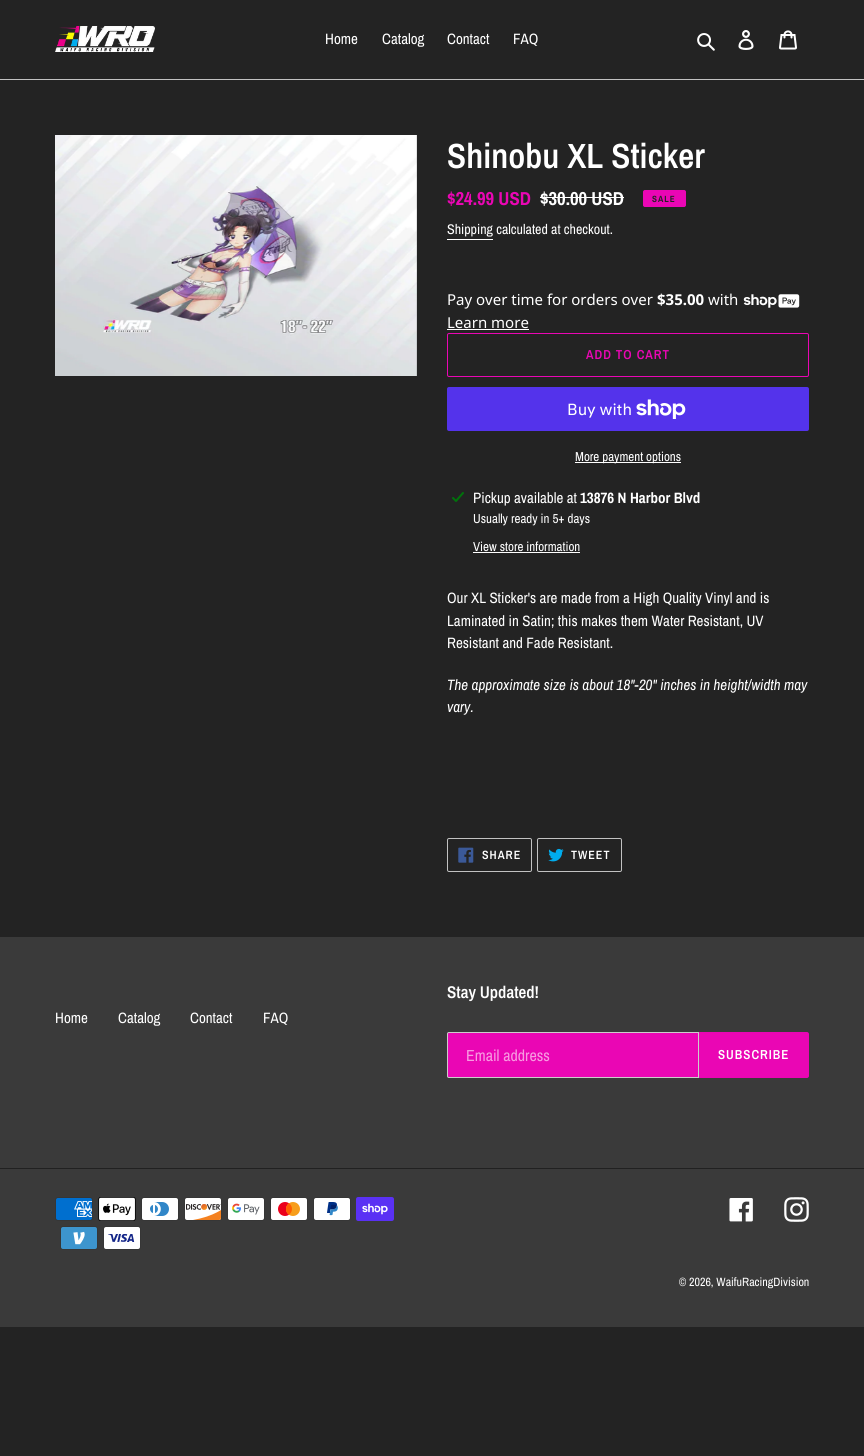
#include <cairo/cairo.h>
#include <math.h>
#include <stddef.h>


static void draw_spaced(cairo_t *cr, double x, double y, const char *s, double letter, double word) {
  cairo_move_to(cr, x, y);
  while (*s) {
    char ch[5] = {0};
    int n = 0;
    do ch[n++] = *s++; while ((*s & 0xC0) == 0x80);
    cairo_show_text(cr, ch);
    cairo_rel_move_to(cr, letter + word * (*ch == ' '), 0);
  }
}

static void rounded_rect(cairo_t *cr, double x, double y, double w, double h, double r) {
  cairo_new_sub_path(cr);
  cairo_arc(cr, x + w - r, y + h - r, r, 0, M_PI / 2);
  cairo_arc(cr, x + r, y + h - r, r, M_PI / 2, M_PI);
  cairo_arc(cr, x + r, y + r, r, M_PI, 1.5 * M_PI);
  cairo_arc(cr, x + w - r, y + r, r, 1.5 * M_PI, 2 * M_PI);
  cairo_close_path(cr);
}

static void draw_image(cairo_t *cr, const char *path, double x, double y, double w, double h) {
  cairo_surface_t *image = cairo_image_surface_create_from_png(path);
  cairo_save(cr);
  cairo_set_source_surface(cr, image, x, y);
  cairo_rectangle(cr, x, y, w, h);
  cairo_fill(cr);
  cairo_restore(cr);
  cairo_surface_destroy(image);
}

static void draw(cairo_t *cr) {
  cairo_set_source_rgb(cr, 35 / 255.0, 35 / 255.0, 35 / 255.0);
  cairo_paint(cr);
  cairo_set_source_rgb(cr, 194 / 255.0, 194 / 255.0, 194 / 255.0);
  cairo_rectangle(cr, 0, 79, 864, 1);
  cairo_fill(cr);
  draw_image(cr, "images/1.png", 55, 26, 100, 26);
  draw_image(cr, "images/2.png", 697, 33, 18, 18);
  draw_image(cr, "images/3.png", 738, 30, 16, 20);
  draw_image(cr, "images/4.png", 779, 30, 18, 20);
  draw_image(cr, "images/5.png", 55, 135, 362, 241);
  cairo_set_source_rgb(cr, 1, 1, 1);
  cairo_rectangle(cr, 540, 197, 84, 1);
  cairo_fill(cr);
  cairo_set_source_rgb(cr, 234 / 255.0, 6 / 255.0, 180 / 255.0);
  rounded_rect(cr, 643.5, 190.5, 42, 16, 1.5);
  cairo_fill_preserve(cr);
  cairo_set_line_width(cr, 1);
  cairo_stroke(cr);
  cairo_set_source_rgb(cr, 1, 1, 1);
  cairo_rectangle(cr, 447, 239, 46, 1);
  cairo_fill(cr);
  draw_image(cr, "images/6.png", 743, 294, 57, 14);
  cairo_rectangle(cr, 447, 329, 82, 1);
  cairo_fill(cr);
  rounded_rect(cr, 447.5, 333.5, 361, 43, 1.5);
  cairo_set_source_rgb(cr, 234 / 255.0, 6 / 255.0, 180 / 255.0);
  cairo_stroke(cr);
  cairo_set_source_rgb(cr, 84 / 255.0, 51 / 255.0, 235 / 255.0);
  rounded_rect(cr, 447, 387, 362, 44, 2);
  cairo_fill(cr);
  draw_image(cr, "images/7.png", 636, 399, 50, 20);
  cairo_set_source_rgb(cr, 1, 1, 1);
  cairo_rectangle(cr, 575, 462, 106, 1);
  cairo_fill(cr);
  draw_image(cr, "images/8.png", 452, 492, 12, 10);
  cairo_rectangle(cr, 473, 552, 107, 1);
  cairo_fill(cr);
  rounded_rect(cr, 447.5, 838.5, 84, 33, 1.5);
  cairo_set_source_rgb(cr, 194 / 255.0, 194 / 255.0, 194 / 255.0);
  cairo_stroke(cr);
  draw_image(cr, "images/9.png", 458, 847, 16, 16);
  rounded_rect(cr, 537.5, 838.5, 84, 33, 1.5);
  cairo_stroke(cr);
  draw_image(cr, "images/10.png", 548, 848, 16, 14);
  cairo_set_source_rgb(cr, 58 / 255.0, 58 / 255.0, 58 / 255.0);
  cairo_rectangle(cr, 0, 937, 864, 390);
  cairo_fill(cr);
  cairo_set_source_rgb(cr, 234 / 255.0, 6 / 255.0, 180 / 255.0);
  cairo_new_path(cr);
  cairo_move_to(cr, 449, 1032.5);
  cairo_line_to(cr, 698.5, 1032.5);
  cairo_line_to(cr, 698.5, 1077.5);
  cairo_line_to(cr, 449, 1077.5);
  cairo_curve_to(cr, 448, 1077.5, 447.5, 1077, 447.5, 1076);
  cairo_line_to(cr, 447.5, 1034);
  cairo_curve_to(cr, 447.5, 1033, 448, 1032.5, 449, 1032.5);
  cairo_close_path(cr);
  cairo_fill_preserve(cr);
  cairo_set_source_rgb(cr, 204 / 255.0, 204 / 255.0, 204 / 255.0);
  cairo_stroke(cr);
  cairo_set_source_rgb(cr, 234 / 255.0, 6 / 255.0, 180 / 255.0);
  cairo_new_path(cr);
  cairo_move_to(cr, 699, 1032);
  cairo_line_to(cr, 807, 1032);
  cairo_curve_to(cr, 808, 1032, 809, 1033, 809, 1034);
  cairo_line_to(cr, 809, 1076);
  cairo_curve_to(cr, 809, 1077, 808, 1078, 807, 1078);
  cairo_line_to(cr, 699, 1078);
  cairo_close_path(cr);
  cairo_fill(cr);
  cairo_set_source_rgb(cr, 33 / 255.0, 33 / 255.0, 33 / 255.0);
  cairo_rectangle(cr, 0, 1168, 864, 1);
  cairo_fill(cr);
  draw_image(cr, "images/11.png", 55, 1197, 38, 24);
  draw_image(cr, "images/12.png", 98, 1197, 38, 24);
  draw_image(cr, "images/13.png", 141, 1197, 38, 24);
  draw_image(cr, "images/14.png", 184, 1197, 38, 24);
  draw_image(cr, "images/15.png", 227, 1197, 38, 24);
  draw_image(cr, "images/16.png", 270, 1197, 38, 24);
  draw_image(cr, "images/17.png", 313, 1197, 38, 24);
  draw_image(cr, "images/18.png", 356, 1197, 38, 24);
  draw_image(cr, "images/19.png", 60, 1226, 38, 24);
  draw_image(cr, "images/20.png", 103, 1226, 38, 24);
  draw_image(cr, "images/21.png", 729, 1198, 24, 24);
  draw_image(cr, "images/22.png", 784, 1197, 25, 25);
  cairo_select_font_face(cr, "Archivo Narrow", CAIRO_FONT_SLANT_NORMAL, CAIRO_FONT_WEIGHT_NORMAL);
  cairo_set_font_size(cr, 15);
  cairo_set_source_rgb(cr, 1, 1, 1);
  cairo_move_to(cr, 325, 44);
  cairo_show_text(cr, "Home");
  cairo_move_to(cr, 382, 44);
  cairo_show_text(cr, "Catalog");
  cairo_move_to(cr, 447, 44);
  cairo_show_text(cr, "Contact");
  cairo_move_to(cr, 513, 44);
  cairo_show_text(cr, "FAQ");
  cairo_select_font_face(cr, "Archivo Narrow SemiBold", CAIRO_FONT_SLANT_NORMAL, CAIRO_FONT_WEIGHT_NORMAL);
  cairo_set_font_size(cr, 35);
  cairo_move_to(cr, 447, 168);
  cairo_show_text(cr, "Shinobu XL Sticker");
  cairo_select_font_face(cr, "Archivo Narrow", CAIRO_FONT_SLANT_NORMAL, CAIRO_FONT_WEIGHT_BOLD);
  cairo_set_font_size(cr, 18.75);
  cairo_set_source_rgb(cr, 234 / 255.0, 6 / 255.0, 180 / 255.0);
  cairo_move_to(cr, 447, 205);
  cairo_show_text(cr, "$24.99 USD");
  cairo_set_source_rgb(cr, 1, 1, 1);
  cairo_move_to(cr, 540, 205);
  cairo_show_text(cr, "$30.00 USD");
  cairo_set_font_size(cr, 9);
  cairo_set_source_rgb(cr, 35 / 255.0, 35 / 255.0, 35 / 255.0);
  draw_spaced(cr, 652, 202, "SALE", 1, 0);
  cairo_select_font_face(cr, "Archivo Narrow", CAIRO_FONT_SLANT_NORMAL, CAIRO_FONT_WEIGHT_NORMAL);
  cairo_set_font_size(cr, 14);
  cairo_set_source_rgb(cr, 1, 1, 1);
  cairo_move_to(cr, 447, 234);
  cairo_show_text(cr, "Shipping calculated at checkout.");
  cairo_select_font_face(cr, "Noto Sans", CAIRO_FONT_SLANT_NORMAL, CAIRO_FONT_WEIGHT_NORMAL);
  cairo_set_font_size(cr, 15);
  cairo_move_to(cr, 447, 305);
  cairo_show_text(cr, "Pay over time for orders over");
  cairo_select_font_face(cr, "Noto Sans", CAIRO_FONT_SLANT_NORMAL, CAIRO_FONT_WEIGHT_BOLD);
  cairo_move_to(cr, 657, 305);
  cairo_show_text(cr, "$35.00");
  cairo_select_font_face(cr, "Noto Sans", CAIRO_FONT_SLANT_NORMAL, CAIRO_FONT_WEIGHT_NORMAL);
  cairo_move_to(cr, 708, 305);
  cairo_show_text(cr, "with");
  cairo_move_to(cr, 447, 328);
  cairo_show_text(cr, "Learn more");
  cairo_select_font_face(cr, "Archivo Narrow SemiBold", CAIRO_FONT_SLANT_NORMAL, CAIRO_FONT_WEIGHT_NORMAL);
  cairo_set_font_size(cr, 13);
  cairo_set_source_rgb(cr, 234 / 255.0, 6 / 255.0, 180 / 255.0);
  draw_spaced(cr, 586, 359, "ADD TO CART", 1, 0);
  cairo_select_font_face(cr, "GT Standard", CAIRO_FONT_SLANT_NORMAL, CAIRO_FONT_WEIGHT_NORMAL);
  cairo_set_font_size(cr, 16);
  cairo_set_source_rgb(cr, 1, 1, 1);
  cairo_move_to(cr, 567, 415);
  cairo_show_text(cr, "Buy with");
  cairo_select_font_face(cr, "Archivo Narrow", CAIRO_FONT_SLANT_NORMAL, CAIRO_FONT_WEIGHT_NORMAL);
  cairo_set_font_size(cr, 13);
  cairo_move_to(cr, 575, 461);
  cairo_show_text(cr, "More payment options");
  cairo_set_font_size(cr, 15);
  cairo_move_to(cr, 473, 503);
  cairo_show_text(cr, "Pickup available at");
  cairo_select_font_face(cr, "Archivo Narrow", CAIRO_FONT_SLANT_NORMAL, CAIRO_FONT_WEIGHT_BOLD);
  cairo_move_to(cr, 580, 503);
  cairo_show_text(cr, "13876 N Harbor Blvd");
  cairo_select_font_face(cr, "Archivo Narrow", CAIRO_FONT_SLANT_NORMAL, CAIRO_FONT_WEIGHT_NORMAL);
  cairo_set_font_size(cr, 13);
  cairo_move_to(cr, 473, 523);
  cairo_show_text(cr, "Usually ready in 5+ days");
  cairo_move_to(cr, 473, 551);
  cairo_show_text(cr, "View store information");
  cairo_set_font_size(cr, 15);
  cairo_move_to(cr, 447, 603);
  cairo_show_text(cr, "Our XL Sticker's are made from a High Quality Vinyl and is");
  cairo_move_to(cr, 447, 626);
  cairo_show_text(cr, "Laminated in Satin; this makes them Water Resistant, UV");
  cairo_move_to(cr, 447, 648);
  cairo_show_text(cr, "Resistant and Fade Resistant.");
  cairo_select_font_face(cr, "Archivo Narrow", CAIRO_FONT_SLANT_ITALIC, CAIRO_FONT_WEIGHT_NORMAL);
  cairo_move_to(cr, 447, 690);
  cairo_show_text(cr, "The approximate size is about 18\"-20\" inches in height/width may");
  cairo_move_to(cr, 447, 712);
  cairo_show_text(cr, "vary.");
  cairo_select_font_face(cr, "Archivo Narrow SemiBold", CAIRO_FONT_SLANT_NORMAL, CAIRO_FONT_WEIGHT_NORMAL);
  cairo_set_font_size(cr, 12);
  draw_spaced(cr, 482, 859, "SHARE", 1, 0);
  draw_spaced(cr, 571, 859, "TWEET", 1, 0);
  cairo_select_font_face(cr, "Archivo Narrow", CAIRO_FONT_SLANT_NORMAL, CAIRO_FONT_WEIGHT_NORMAL);
  cairo_set_font_size(cr, 15);
  cairo_move_to(cr, 55, 1023);
  cairo_show_text(cr, "Home");
  cairo_move_to(cr, 118, 1023);
  cairo_show_text(cr, "Catalog");
  cairo_move_to(cr, 190, 1023);
  cairo_show_text(cr, "Contact");
  cairo_move_to(cr, 263, 1023);
  cairo_show_text(cr, "FAQ");
  cairo_select_font_face(cr, "Archivo Narrow SemiBold", CAIRO_FONT_SLANT_NORMAL, CAIRO_FONT_WEIGHT_NORMAL);
  cairo_set_font_size(cr, 17);
  cairo_move_to(cr, 447, 998);
  cairo_show_text(cr, "Stay Updated!");
  cairo_select_font_face(cr, "Archivo Narrow", CAIRO_FONT_SLANT_NORMAL, CAIRO_FONT_WEIGHT_NORMAL);
  cairo_set_font_size(cr, 16);
  cairo_set_source_rgb(cr, 247 / 255.0, 155 / 255.0, 225 / 255.0);
  cairo_move_to(cr, 466, 1061);
  cairo_show_text(cr, "Email address");
  cairo_select_font_face(cr, "Archivo Narrow SemiBold", CAIRO_FONT_SLANT_NORMAL, CAIRO_FONT_WEIGHT_NORMAL);
  cairo_set_font_size(cr, 13);
  cairo_set_source_rgb(cr, 1, 1, 1);
  draw_spaced(cr, 718, 1059, "SUBSCRIBE", 1, 0);
  cairo_select_font_face(cr, "Archivo Narrow", CAIRO_FONT_SLANT_NORMAL, CAIRO_FONT_WEIGHT_NORMAL);
  cairo_set_font_size(cr, 12);
  cairo_move_to(cr, 679, 1286);
  cairo_show_text(cr, "© 2026, WaifuRacingDivision");
}

int main(void) {
  cairo_surface_t *surface = cairo_image_surface_create(CAIRO_FORMAT_RGB24, 864, 1456);
  cairo_t *cr = cairo_create(surface);
  cairo_font_options_t *options = cairo_font_options_create();
  cairo_font_options_set_hint_metrics(options, CAIRO_HINT_METRICS_OFF);
  cairo_font_options_set_hint_style(options, CAIRO_HINT_STYLE_NONE);
  cairo_set_font_options(cr, options);
  cairo_set_miter_limit(cr, 4);
  draw(cr);
  cairo_surface_write_to_png(surface, "out.png");
  cairo_font_options_destroy(options);
  cairo_destroy(cr);
  cairo_surface_destroy(surface);
  return 0;
}
